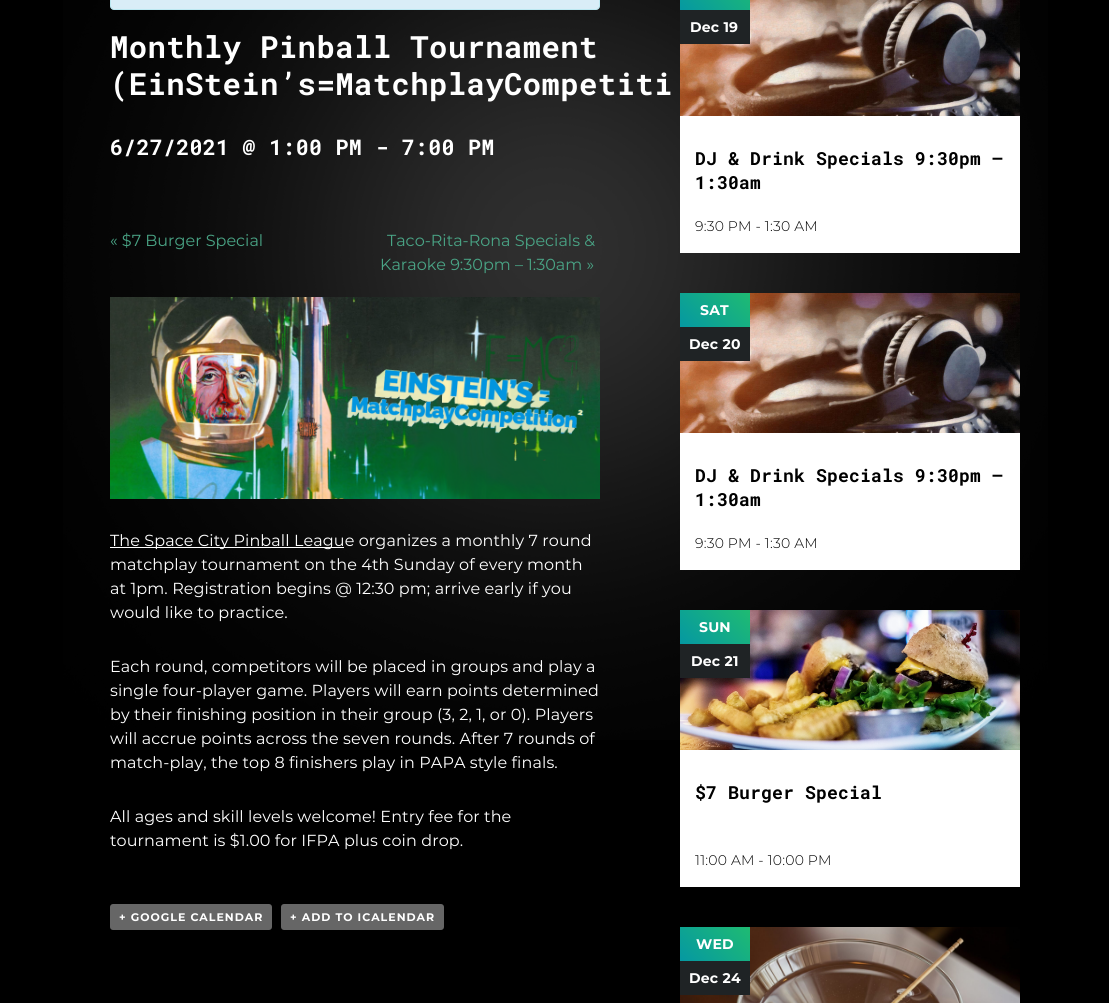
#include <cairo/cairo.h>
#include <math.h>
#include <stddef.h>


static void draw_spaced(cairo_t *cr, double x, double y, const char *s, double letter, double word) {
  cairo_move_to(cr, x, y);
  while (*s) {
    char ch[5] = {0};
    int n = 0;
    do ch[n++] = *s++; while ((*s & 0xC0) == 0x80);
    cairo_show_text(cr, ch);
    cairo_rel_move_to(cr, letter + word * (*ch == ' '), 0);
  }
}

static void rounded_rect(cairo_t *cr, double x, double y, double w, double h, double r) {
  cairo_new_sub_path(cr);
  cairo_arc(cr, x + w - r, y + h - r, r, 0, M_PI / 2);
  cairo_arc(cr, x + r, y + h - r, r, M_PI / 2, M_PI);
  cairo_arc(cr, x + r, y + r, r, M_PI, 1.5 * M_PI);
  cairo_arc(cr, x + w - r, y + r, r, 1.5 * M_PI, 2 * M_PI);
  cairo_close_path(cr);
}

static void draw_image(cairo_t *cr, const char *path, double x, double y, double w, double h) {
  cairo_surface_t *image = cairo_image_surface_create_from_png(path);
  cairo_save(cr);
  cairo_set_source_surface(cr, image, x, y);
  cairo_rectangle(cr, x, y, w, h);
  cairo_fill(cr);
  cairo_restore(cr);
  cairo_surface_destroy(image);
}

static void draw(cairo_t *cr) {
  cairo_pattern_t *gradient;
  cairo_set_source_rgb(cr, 0, 0, 0);
  cairo_paint(cr);
  draw_image(cr, "images/1.png", 63, 0, 985, 740);
  cairo_set_source_rgb(cr, 217 / 255.0, 237 / 255.0, 247 / 255.0);
  rounded_rect(cr, 110.5, -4.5, 489, 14, 3.5);
  cairo_fill_preserve(cr);
  cairo_set_source_rgb(cr, 188 / 255.0, 232 / 255.0, 241 / 255.0);
  cairo_set_line_width(cr, 1);
  cairo_stroke(cr);
  draw_image(cr, "images/2.png", 110, 297, 490, 202);
  cairo_set_source_rgb(cr, 1, 1, 1);
  cairo_rectangle(cr, 110, 547, 234, 1);
  cairo_fill(cr);
  cairo_set_source_rgb(cr, 102 / 255.0, 102 / 255.0, 102 / 255.0);
  rounded_rect(cr, 110, 904, 162, 26, 3);
  cairo_fill(cr);
  rounded_rect(cr, 281, 904, 163, 26, 3);
  cairo_fill(cr);
  cairo_set_source_rgb(cr, 1, 1, 1);
  cairo_rectangle(cr, 680, 116, 340, 137);
  cairo_fill(cr);
  draw_image(cr, "images/3.png", 680, 0, 340, 116);
  gradient = cairo_pattern_create_linear(741, -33, 689, 19);
  cairo_pattern_add_color_stop_rgba(gradient, 0, 31 / 255.0, 187 / 255.0, 114 / 255.0, 1);
  cairo_pattern_add_color_stop_rgba(gradient, 1, 5 / 255.0, 152 / 255.0, 162 / 255.0, 1);
  cairo_set_source(cr, gradient);
  cairo_pattern_destroy(gradient);
  cairo_rectangle(cr, 680, 0, 70, 10);
  cairo_fill(cr);
  cairo_set_source_rgb(cr, 31 / 255.0, 35 / 255.0, 37 / 255.0);
  cairo_rectangle(cr, 680, 10, 70, 34);
  cairo_fill(cr);
  cairo_set_source_rgb(cr, 1, 1, 1);
  cairo_rectangle(cr, 680, 433, 340, 137);
  cairo_fill(cr);
  draw_image(cr, "images/4.png", 680, 293, 340, 140);
  gradient = cairo_pattern_create_linear(741, 284, 689, 336);
  cairo_pattern_add_color_stop_rgba(gradient, 0, 31 / 255.0, 187 / 255.0, 114 / 255.0, 1);
  cairo_pattern_add_color_stop_rgba(gradient, 1, 5 / 255.0, 152 / 255.0, 162 / 255.0, 1);
  cairo_set_source(cr, gradient);
  cairo_pattern_destroy(gradient);
  cairo_rectangle(cr, 680, 293, 70, 34);
  cairo_fill(cr);
  cairo_set_source_rgb(cr, 31 / 255.0, 35 / 255.0, 37 / 255.0);
  cairo_rectangle(cr, 680, 327, 70, 34);
  cairo_fill(cr);
  cairo_set_source_rgb(cr, 1, 1, 1);
  cairo_rectangle(cr, 680, 750, 340, 137);
  cairo_fill(cr);
  draw_image(cr, "images/5.png", 680, 610, 340, 140);
  gradient = cairo_pattern_create_linear(741, 601, 689, 653);
  cairo_pattern_add_color_stop_rgba(gradient, 0, 31 / 255.0, 187 / 255.0, 114 / 255.0, 1);
  cairo_pattern_add_color_stop_rgba(gradient, 1, 5 / 255.0, 152 / 255.0, 162 / 255.0, 1);
  cairo_set_source(cr, gradient);
  cairo_pattern_destroy(gradient);
  cairo_rectangle(cr, 680, 610, 70, 34);
  cairo_fill(cr);
  cairo_set_source_rgb(cr, 31 / 255.0, 35 / 255.0, 37 / 255.0);
  cairo_rectangle(cr, 680, 644, 70, 34);
  cairo_fill(cr);
  draw_image(cr, "images/6.png", 680, 927, 340, 76);
  gradient = cairo_pattern_create_linear(741, 918, 689, 970);
  cairo_pattern_add_color_stop_rgba(gradient, 0, 31 / 255.0, 187 / 255.0, 114 / 255.0, 1);
  cairo_pattern_add_color_stop_rgba(gradient, 1, 5 / 255.0, 152 / 255.0, 162 / 255.0, 1);
  cairo_set_source(cr, gradient);
  cairo_pattern_destroy(gradient);
  cairo_rectangle(cr, 680, 927, 70, 34);
  cairo_fill(cr);
  cairo_set_source_rgb(cr, 31 / 255.0, 35 / 255.0, 37 / 255.0);
  cairo_rectangle(cr, 680, 961, 70, 34);
  cairo_fill(cr);
  cairo_select_font_face(cr, "Roboto Mono", CAIRO_FONT_SLANT_NORMAL, CAIRO_FONT_WEIGHT_BOLD);
  cairo_set_font_size(cr, 30.6);
  cairo_set_source_rgb(cr, 1, 1, 1);
  draw_spaced(cr, 110, 58, "Monthly Pinball Tournament", 0.4, 0);
  draw_spaced(cr, 110, 95, "(EinStein’s=MatchplayCompetiti", 0.4, 0);
  cairo_set_font_size(cr, 21.6);
  draw_spaced(cr, 110, 155, "6/27/2021 @ 1:00 PM - 7:00 PM", 0.3, 0);
  cairo_select_font_face(cr, "Montserrat", CAIRO_FONT_SLANT_NORMAL, CAIRO_FONT_WEIGHT_NORMAL);
  cairo_set_font_size(cr, 16);
  cairo_set_source_rgb(cr, 73 / 255.0, 164 / 255.0, 133 / 255.0);
  cairo_move_to(cr, 110, 246);
  cairo_show_text(cr, "« $7 Burger Special");
  cairo_move_to(cr, 387, 246);
  cairo_show_text(cr, "Taco-Rita-Rona Specials &");
  cairo_move_to(cr, 380, 270);
  cairo_show_text(cr, "Karaoke 9:30pm – 1:30am »");
  cairo_set_source_rgb(cr, 1, 1, 1);
  draw_spaced(cr, 110, 546, "The Space City Pinball League organizes a monthly 7 round", 0.1, 0);
  draw_spaced(cr, 110, 570, "matchplay tournament on the 4th Sunday of every month", 0.1, 0);
  draw_spaced(cr, 110, 594, "at 1pm. Registration begins @ 12:30 pm; arrive early if you", 0.1, 0);
  draw_spaced(cr, 110, 618, "would like to practice.", 0.1, 0);
  draw_spaced(cr, 110, 672, "Each round, competitors will be placed in groups and play a", 0.1, 0);
  draw_spaced(cr, 110, 696, "single four-player game. Players will earn points determined", 0.1, 0);
  draw_spaced(cr, 110, 720, "by their finishing position in their group (3, 2, 1, or 0). Players", 0.1, 0);
  draw_spaced(cr, 110, 744, "will accrue points across the seven rounds. After 7 rounds of", 0.1, 0);
  draw_spaced(cr, 110, 768, "match-play, the top 8 finishers play in PAPA style finals.", 0.1, 0);
  draw_spaced(cr, 110, 822, "All ages and skill levels welcome! Entry fee for the", 0.1, 0);
  draw_spaced(cr, 110, 846, "tournament is $1.00 for IFPA plus coin drop.", 0.1, 0);
  cairo_select_font_face(cr, "Montserrat", CAIRO_FONT_SLANT_NORMAL, CAIRO_FONT_WEIGHT_BOLD);
  cairo_set_font_size(cr, 11);
  draw_spaced(cr, 119, 921, "+ GOOGLE CALENDAR", 1, 0);
  draw_spaced(cr, 290, 921, "+ ADD TO ICALENDAR", 1, 0);
  cairo_set_font_size(cr, 14);
  draw_spaced(cr, 690, 32, "Dec 19", 0.2, 0);
  cairo_select_font_face(cr, "Roboto Mono", CAIRO_FONT_SLANT_NORMAL, CAIRO_FONT_WEIGHT_BOLD);
  cairo_set_font_size(cr, 18);
  cairo_set_source_rgb(cr, 0, 0, 0);
  draw_spaced(cr, 695, 165, "DJ & Drink Specials 9:30pm –", 0.2, 0);
  draw_spaced(cr, 695, 189, "1:30am", 0.2, 0);
  cairo_select_font_face(cr, "Montserrat Light", CAIRO_FONT_SLANT_NORMAL, CAIRO_FONT_WEIGHT_NORMAL);
  cairo_set_font_size(cr, 14);
  draw_spaced(cr, 695, 231, "9:30 PM - 1:30 AM", 0.2, 0);
  cairo_select_font_face(cr, "Montserrat", CAIRO_FONT_SLANT_NORMAL, CAIRO_FONT_WEIGHT_BOLD);
  cairo_set_source_rgb(cr, 1, 1, 1);
  draw_spaced(cr, 700, 315, "SAT", 0.2, 0);
  draw_spaced(cr, 689, 349, "Dec 20", 0.2, 0);
  cairo_select_font_face(cr, "Roboto Mono", CAIRO_FONT_SLANT_NORMAL, CAIRO_FONT_WEIGHT_BOLD);
  cairo_set_font_size(cr, 18);
  cairo_set_source_rgb(cr, 0, 0, 0);
  draw_spaced(cr, 695, 482, "DJ & Drink Specials 9:30pm –", 0.2, 0);
  draw_spaced(cr, 695, 506, "1:30am", 0.2, 0);
  cairo_select_font_face(cr, "Montserrat Light", CAIRO_FONT_SLANT_NORMAL, CAIRO_FONT_WEIGHT_NORMAL);
  cairo_set_font_size(cr, 14);
  draw_spaced(cr, 695, 548, "9:30 PM - 1:30 AM", 0.2, 0);
  cairo_select_font_face(cr, "Montserrat", CAIRO_FONT_SLANT_NORMAL, CAIRO_FONT_WEIGHT_BOLD);
  cairo_set_source_rgb(cr, 1, 1, 1);
  draw_spaced(cr, 699, 632, "SUN", 0.2, 0);
  draw_spaced(cr, 691, 666, "Dec 21", 0.2, 0);
  cairo_select_font_face(cr, "Roboto Mono", CAIRO_FONT_SLANT_NORMAL, CAIRO_FONT_WEIGHT_BOLD);
  cairo_set_font_size(cr, 18);
  cairo_set_source_rgb(cr, 0, 0, 0);
  draw_spaced(cr, 695, 799, "$7 Burger Special", 0.2, 0);
  cairo_select_font_face(cr, "Montserrat Light", CAIRO_FONT_SLANT_NORMAL, CAIRO_FONT_WEIGHT_NORMAL);
  cairo_set_font_size(cr, 14);
  draw_spaced(cr, 695, 865, "11:00 AM - 10:00 PM", 0.2, 0);
  cairo_select_font_face(cr, "Montserrat", CAIRO_FONT_SLANT_NORMAL, CAIRO_FONT_WEIGHT_BOLD);
  cairo_set_source_rgb(cr, 1, 1, 1);
  draw_spaced(cr, 696, 949, "WED", 0.2, 0);
  draw_spaced(cr, 689, 983, "Dec 24", 0.2, 0);
}

int main(void) {
  cairo_surface_t *surface = cairo_image_surface_create(CAIRO_FORMAT_RGB24, 1109, 1003);
  cairo_t *cr = cairo_create(surface);
  cairo_font_options_t *options = cairo_font_options_create();
  cairo_font_options_set_hint_metrics(options, CAIRO_HINT_METRICS_OFF);
  cairo_font_options_set_hint_style(options, CAIRO_HINT_STYLE_NONE);
  cairo_set_font_options(cr, options);
  cairo_set_miter_limit(cr, 4);
  draw(cr);
  cairo_surface_write_to_png(surface, "out.png");
  cairo_font_options_destroy(options);
  cairo_destroy(cr);
  cairo_surface_destroy(surface);
  return 0;
}
